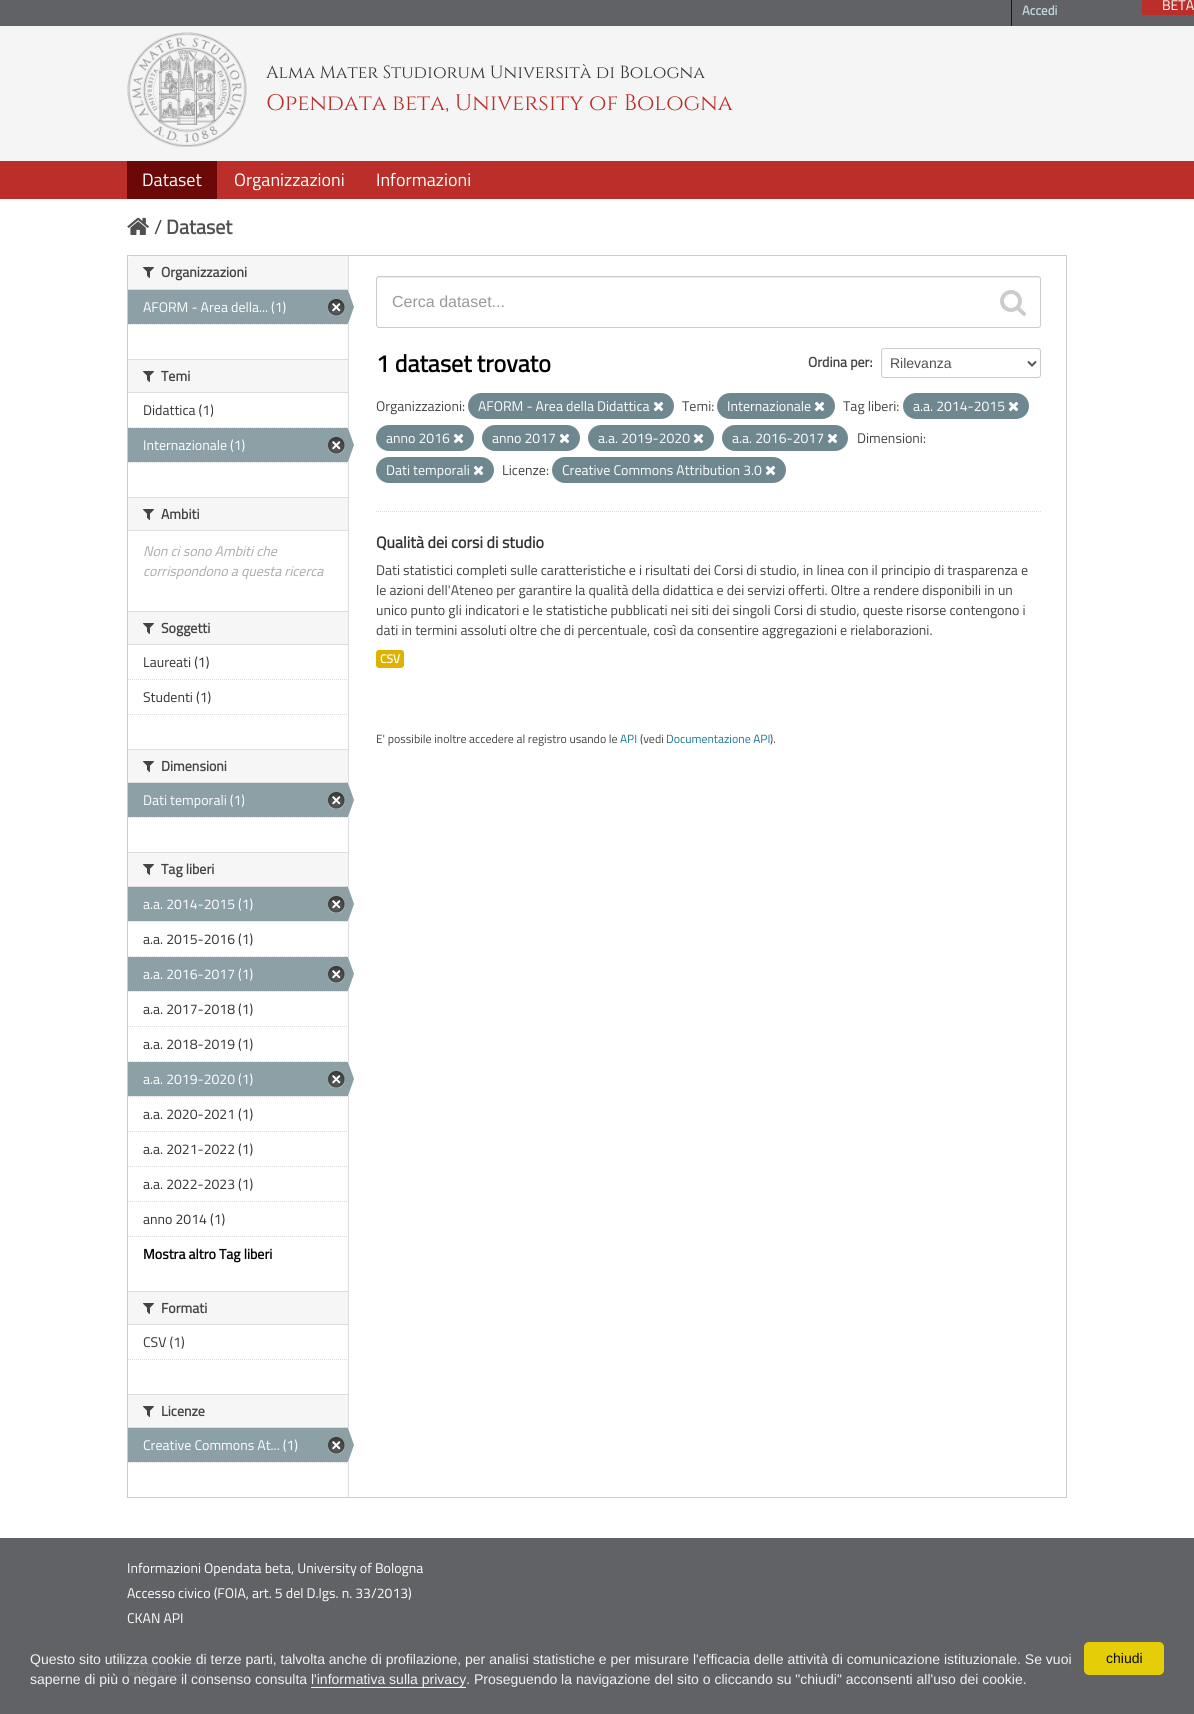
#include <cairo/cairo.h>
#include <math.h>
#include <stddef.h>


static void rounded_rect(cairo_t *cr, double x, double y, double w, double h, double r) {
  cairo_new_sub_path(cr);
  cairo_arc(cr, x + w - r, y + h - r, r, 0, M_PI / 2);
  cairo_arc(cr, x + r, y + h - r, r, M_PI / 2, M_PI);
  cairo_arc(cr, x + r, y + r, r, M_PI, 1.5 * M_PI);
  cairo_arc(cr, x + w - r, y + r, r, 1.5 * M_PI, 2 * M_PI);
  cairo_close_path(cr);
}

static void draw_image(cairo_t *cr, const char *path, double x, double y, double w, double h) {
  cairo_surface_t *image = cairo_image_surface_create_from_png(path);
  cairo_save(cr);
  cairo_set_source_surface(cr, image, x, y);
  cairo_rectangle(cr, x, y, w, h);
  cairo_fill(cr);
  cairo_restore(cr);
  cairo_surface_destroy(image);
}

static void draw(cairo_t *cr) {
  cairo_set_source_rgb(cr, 1, 1, 1);
  cairo_paint(cr);
  cairo_set_source_rgb(cr, 97 / 255.0, 98 / 255.0, 101 / 255.0);
  cairo_rectangle(cr, 0, 0, 1194, 26);
  cairo_fill(cr);
  cairo_set_source_rgb(cr, 0, 35 / 255.0, 46 / 255.0);
  cairo_rectangle(cr, 1011, 0, 1, 26);
  cairo_fill(cr);
  cairo_set_source_rgb(cr, 187 / 255.0, 46 / 255.0, 41 / 255.0);
  cairo_rectangle(cr, 1142, 0, 52, 15);
  cairo_fill(cr);
  cairo_set_source_rgb(cr, 245 / 255.0, 245 / 255.0, 245 / 255.0);
  cairo_rectangle(cr, 0, 26, 1194, 135);
  cairo_fill(cr);
  draw_image(cr, "images/1.png", 127, 32, 120, 115);
  cairo_set_source_rgb(cr, 187 / 255.0, 46 / 255.0, 41 / 255.0);
  cairo_rectangle(cr, 0, 161, 1194, 38);
  cairo_fill(cr);
  cairo_set_source_rgb(cr, 107 / 255.0, 8 / 255.0, 8 / 255.0);
  cairo_rectangle(cr, 127, 161, 90, 38);
  cairo_fill(cr);
  draw_image(cr, "images/2.png", 127, 217, 22, 18);
  cairo_set_source_rgb(cr, 221 / 255.0, 221 / 255.0, 221 / 255.0);
  cairo_rectangle(cr, 348, 255, 1, 1243);
  cairo_fill(cr);
  cairo_rectangle(cr, 127.5, 255.5, 939, 1242);
  cairo_set_source_rgb(cr, 204 / 255.0, 204 / 255.0, 204 / 255.0);
  cairo_set_line_width(cr, 1);
  cairo_stroke(cr);
  cairo_set_source_rgb(cr, 246 / 255.0, 246 / 255.0, 246 / 255.0);
  cairo_new_path(cr);
  cairo_move_to(cr, 131, 256);
  cairo_line_to(cr, 348, 256);
  cairo_line_to(cr, 348, 290);
  cairo_line_to(cr, 128, 290);
  cairo_line_to(cr, 128, 259);
  cairo_curve_to(cr, 128, 257.5, 129.5, 256, 131, 256);
  cairo_close_path(cr);
  cairo_fill(cr);
  cairo_set_source_rgb(cr, 221 / 255.0, 221 / 255.0, 221 / 255.0);
  cairo_rectangle(cr, 128, 289, 220, 1);
  cairo_fill(cr);
  draw_image(cr, "images/3.png", 143, 267, 11, 11);
  cairo_set_source_rgb(cr, 140 / 255.0, 160 / 255.0, 166 / 255.0);
  cairo_rectangle(cr, 128, 290, 220, 34);
  cairo_fill(cr);
  draw_image(cr, "images/4.png", 328, 299, 17, 17);
  draw_image(cr, "images/5.png", 348, 290, 6, 34);
  cairo_new_path(cr);
  cairo_move_to(cr, 128, 324.5);
  cairo_line_to(cr, 348, 324.5);
  cairo_set_source_rgb(cr, 221 / 255.0, 221 / 255.0, 221 / 255.0);
  cairo_set_dash(cr, (double[]){1, 1}, 2, 0);
  cairo_stroke(cr);
  cairo_set_source_rgb(cr, 246 / 255.0, 246 / 255.0, 246 / 255.0);
  cairo_rectangle(cr, 128, 360, 220, 32);
  cairo_fill(cr);
  cairo_set_source_rgb(cr, 221 / 255.0, 221 / 255.0, 221 / 255.0);
  cairo_rectangle(cr, 128, 359, 220, 1);
  cairo_fill(cr);
  cairo_rectangle(cr, 128, 392, 220, 1);
  cairo_fill(cr);
  draw_image(cr, "images/3.png", 143, 371, 11, 11);
  cairo_new_path(cr);
  cairo_move_to(cr, 128, 427.5);
  cairo_line_to(cr, 348, 427.5);
  cairo_stroke(cr);
  cairo_set_source_rgb(cr, 140 / 255.0, 160 / 255.0, 166 / 255.0);
  cairo_rectangle(cr, 128, 428, 220, 34);
  cairo_fill(cr);
  draw_image(cr, "images/4.png", 328, 437, 17, 17);
  draw_image(cr, "images/5.png", 348, 428, 6, 34);
  cairo_new_path(cr);
  cairo_move_to(cr, 128, 462.5);
  cairo_line_to(cr, 348, 462.5);
  cairo_set_source_rgb(cr, 221 / 255.0, 221 / 255.0, 221 / 255.0);
  cairo_stroke(cr);
  cairo_set_source_rgb(cr, 246 / 255.0, 246 / 255.0, 246 / 255.0);
  cairo_rectangle(cr, 128, 498, 220, 32);
  cairo_fill(cr);
  cairo_set_source_rgb(cr, 221 / 255.0, 221 / 255.0, 221 / 255.0);
  cairo_rectangle(cr, 128, 497, 220, 1);
  cairo_fill(cr);
  cairo_rectangle(cr, 128, 530, 220, 1);
  cairo_fill(cr);
  draw_image(cr, "images/3.png", 143, 509, 11, 11);
  cairo_set_source_rgb(cr, 246 / 255.0, 246 / 255.0, 246 / 255.0);
  cairo_rectangle(cr, 128, 612, 220, 32);
  cairo_fill(cr);
  cairo_set_source_rgb(cr, 221 / 255.0, 221 / 255.0, 221 / 255.0);
  cairo_rectangle(cr, 128, 611, 220, 1);
  cairo_fill(cr);
  cairo_rectangle(cr, 128, 644, 220, 1);
  cairo_fill(cr);
  draw_image(cr, "images/3.png", 143, 623, 11, 11);
  cairo_new_path(cr);
  cairo_move_to(cr, 128, 679.5);
  cairo_line_to(cr, 348, 679.5);
  cairo_stroke(cr);
  cairo_new_path(cr);
  cairo_move_to(cr, 128, 714.5);
  cairo_line_to(cr, 348, 714.5);
  cairo_stroke(cr);
  cairo_set_source_rgb(cr, 246 / 255.0, 246 / 255.0, 246 / 255.0);
  cairo_rectangle(cr, 128, 750, 220, 32);
  cairo_fill(cr);
  cairo_set_source_rgb(cr, 221 / 255.0, 221 / 255.0, 221 / 255.0);
  cairo_rectangle(cr, 128, 749, 220, 1);
  cairo_fill(cr);
  cairo_rectangle(cr, 128, 782, 220, 1);
  cairo_fill(cr);
  draw_image(cr, "images/3.png", 143, 761, 11, 11);
  cairo_set_source_rgb(cr, 140 / 255.0, 160 / 255.0, 166 / 255.0);
  cairo_rectangle(cr, 128, 783, 220, 34);
  cairo_fill(cr);
  draw_image(cr, "images/4.png", 328, 792, 17, 17);
  draw_image(cr, "images/5.png", 348, 783, 6, 34);
  cairo_new_path(cr);
  cairo_move_to(cr, 128, 817.5);
  cairo_line_to(cr, 348, 817.5);
  cairo_set_source_rgb(cr, 221 / 255.0, 221 / 255.0, 221 / 255.0);
  cairo_stroke(cr);
  cairo_set_source_rgb(cr, 246 / 255.0, 246 / 255.0, 246 / 255.0);
  cairo_rectangle(cr, 128, 853, 220, 33);
  cairo_fill(cr);
  cairo_set_source_rgb(cr, 221 / 255.0, 221 / 255.0, 221 / 255.0);
  cairo_rectangle(cr, 128, 852, 220, 1);
  cairo_fill(cr);
  cairo_rectangle(cr, 128, 886, 220, 1);
  cairo_fill(cr);
  draw_image(cr, "images/3.png", 143, 864, 11, 11);
  cairo_set_source_rgb(cr, 246 / 255.0, 246 / 255.0, 246 / 255.0);
  cairo_rectangle(cr, 129, 921, 219, 1);
  cairo_fill(cr);
  cairo_new_path(cr);
  cairo_move_to(cr, 128, 921.5);
  cairo_line_to(cr, 348, 921.5);
  cairo_set_source_rgb(cr, 221 / 255.0, 221 / 255.0, 221 / 255.0);
  cairo_stroke(cr);
  cairo_set_source_rgb(cr, 140 / 255.0, 160 / 255.0, 166 / 255.0);
  cairo_rectangle(cr, 128, 887, 220, 34);
  cairo_fill(cr);
  draw_image(cr, "images/4.png", 328, 896, 17, 17);
  draw_image(cr, "images/5.png", 348, 887, 6, 34);
  cairo_new_path(cr);
  cairo_move_to(cr, 128, 956.5);
  cairo_line_to(cr, 348, 956.5);
  cairo_set_source_rgb(cr, 221 / 255.0, 221 / 255.0, 221 / 255.0);
  cairo_stroke(cr);
  cairo_set_source_rgb(cr, 246 / 255.0, 246 / 255.0, 246 / 255.0);
  cairo_rectangle(cr, 129, 991, 219, 1);
  cairo_fill(cr);
  cairo_new_path(cr);
  cairo_move_to(cr, 128, 991.5);
  cairo_line_to(cr, 348, 991.5);
  cairo_set_source_rgb(cr, 221 / 255.0, 221 / 255.0, 221 / 255.0);
  cairo_stroke(cr);
  cairo_set_source_rgb(cr, 140 / 255.0, 160 / 255.0, 166 / 255.0);
  cairo_rectangle(cr, 128, 957, 220, 34);
  cairo_fill(cr);
  draw_image(cr, "images/4.png", 328, 966, 17, 17);
  draw_image(cr, "images/5.png", 348, 957, 6, 34);
  cairo_new_path(cr);
  cairo_move_to(cr, 128, 1026.5);
  cairo_line_to(cr, 348, 1026.5);
  cairo_set_source_rgb(cr, 221 / 255.0, 221 / 255.0, 221 / 255.0);
  cairo_stroke(cr);
  cairo_new_path(cr);
  cairo_move_to(cr, 128, 1061.5);
  cairo_line_to(cr, 348, 1061.5);
  cairo_stroke(cr);
  cairo_set_source_rgb(cr, 246 / 255.0, 246 / 255.0, 246 / 255.0);
  cairo_rectangle(cr, 129, 1096, 219, 1);
  cairo_fill(cr);
  cairo_new_path(cr);
  cairo_move_to(cr, 128, 1096.5);
  cairo_line_to(cr, 348, 1096.5);
  cairo_set_source_rgb(cr, 221 / 255.0, 221 / 255.0, 221 / 255.0);
  cairo_stroke(cr);
  cairo_set_source_rgb(cr, 140 / 255.0, 160 / 255.0, 166 / 255.0);
  cairo_rectangle(cr, 128, 1062, 220, 34);
  cairo_fill(cr);
  draw_image(cr, "images/4.png", 328, 1071, 17, 17);
  draw_image(cr, "images/5.png", 348, 1062, 6, 34);
  cairo_new_path(cr);
  cairo_move_to(cr, 128, 1131.5);
  cairo_line_to(cr, 348, 1131.5);
  cairo_set_source_rgb(cr, 221 / 255.0, 221 / 255.0, 221 / 255.0);
  cairo_stroke(cr);
  cairo_new_path(cr);
  cairo_move_to(cr, 128, 1166.5);
  cairo_line_to(cr, 348, 1166.5);
  cairo_stroke(cr);
  cairo_new_path(cr);
  cairo_move_to(cr, 128, 1201.5);
  cairo_line_to(cr, 348, 1201.5);
  cairo_stroke(cr);
  cairo_new_path(cr);
  cairo_move_to(cr, 128, 1236.5);
  cairo_line_to(cr, 348, 1236.5);
  cairo_stroke(cr);
  cairo_set_source_rgb(cr, 246 / 255.0, 246 / 255.0, 246 / 255.0);
  cairo_rectangle(cr, 128, 1292, 220, 32);
  cairo_fill(cr);
  cairo_set_source_rgb(cr, 221 / 255.0, 221 / 255.0, 221 / 255.0);
  cairo_rectangle(cr, 128, 1291, 220, 1);
  cairo_fill(cr);
  cairo_rectangle(cr, 128, 1324, 220, 1);
  cairo_fill(cr);
  draw_image(cr, "images/3.png", 143, 1303, 11, 11);
  cairo_new_path(cr);
  cairo_move_to(cr, 128, 1359.5);
  cairo_line_to(cr, 348, 1359.5);
  cairo_stroke(cr);
  cairo_set_source_rgb(cr, 246 / 255.0, 246 / 255.0, 246 / 255.0);
  cairo_rectangle(cr, 128, 1395, 220, 32);
  cairo_fill(cr);
  cairo_set_source_rgb(cr, 221 / 255.0, 221 / 255.0, 221 / 255.0);
  cairo_rectangle(cr, 128, 1394, 220, 1);
  cairo_fill(cr);
  cairo_rectangle(cr, 128, 1427, 220, 1);
  cairo_fill(cr);
  draw_image(cr, "images/3.png", 143, 1406, 11, 11);
  cairo_set_source_rgb(cr, 140 / 255.0, 160 / 255.0, 166 / 255.0);
  cairo_rectangle(cr, 128, 1428, 220, 34);
  cairo_fill(cr);
  draw_image(cr, "images/4.png", 328, 1437, 17, 17);
  draw_image(cr, "images/5.png", 348, 1428, 6, 34);
  cairo_new_path(cr);
  cairo_move_to(cr, 128, 1462.5);
  cairo_line_to(cr, 348, 1462.5);
  cairo_set_source_rgb(cr, 221 / 255.0, 221 / 255.0, 221 / 255.0);
  cairo_stroke(cr);
  cairo_new_path(cr);
  cairo_move_to(cr, 376, 511.5);
  cairo_line_to(cr, 1041, 511.5);
  cairo_stroke(cr);
  cairo_set_source_rgb(cr, 236 / 255.0, 236 / 255.0, 236 / 255.0);
  cairo_new_path(cr);
  cairo_move_to(cr, 379, 278);
  cairo_line_to(cr, 1038, 278);
  cairo_curve_to(cr, 1039, 278, 1040, 279, 1040, 280);
  cairo_curve_to(cr, 1040, 279, 1040, 277, 1038, 277);
  cairo_line_to(cr, 379, 277);
  cairo_curve_to(cr, 377, 277, 377, 279, 377, 280);
  cairo_curve_to(cr, 377, 279, 378, 278, 379, 278);
  cairo_close_path(cr);
  cairo_fill(cr);
  rounded_rect(cr, 376.5, 276.5, 664, 51, 2.5);
  cairo_set_source_rgb(cr, 204 / 255.0, 204 / 255.0, 204 / 255.0);
  cairo_set_dash(cr, NULL, 0, 0);
  cairo_stroke(cr);
  draw_image(cr, "images/6.png", 1000, 290, 26, 26);
  rounded_rect(cr, 881.5, 348.5, 159, 29, 2.5);
  cairo_stroke(cr);
  cairo_new_path(cr);
  cairo_move_to(cr, 1028, 361.5);
  cairo_line_to(cr, 1032, 365.5);
  cairo_line_to(cr, 1036, 361.5);
  cairo_set_source_rgb(cr, 85 / 255.0, 85 / 255.0, 85 / 255.0);
  cairo_set_line_width(cr, 2);
  cairo_stroke(cr);
  cairo_set_source_rgb(cr, 111 / 255.0, 136 / 255.0, 144 / 255.0);
  rounded_rect(cr, 468, 393, 206, 26, 13);
  cairo_fill(cr);
  draw_image(cr, "images/7.png", 653, 401, 11, 11);
  rounded_rect(cr, 717, 393, 118, 26, 13);
  cairo_fill(cr);
  draw_image(cr, "images/7.png", 814, 401, 11, 11);
  rounded_rect(cr, 903, 393, 126, 26, 13);
  cairo_fill(cr);
  draw_image(cr, "images/7.png", 1008, 401, 11, 11);
  rounded_rect(cr, 376, 425, 98, 26, 13);
  cairo_fill(cr);
  draw_image(cr, "images/7.png", 453, 433, 11, 11);
  rounded_rect(cr, 482, 425, 98, 26, 13);
  cairo_fill(cr);
  draw_image(cr, "images/7.png", 559, 433, 11, 11);
  rounded_rect(cr, 588, 425, 126, 26, 13);
  cairo_fill(cr);
  draw_image(cr, "images/7.png", 693, 433, 11, 11);
  rounded_rect(cr, 722, 425, 126, 26, 13);
  cairo_fill(cr);
  draw_image(cr, "images/7.png", 827, 433, 11, 11);
  rounded_rect(cr, 376, 457, 118, 26, 13);
  cairo_fill(cr);
  draw_image(cr, "images/7.png", 473, 465, 11, 11);
  rounded_rect(cr, 552, 457, 234, 26, 13);
  cairo_fill(cr);
  draw_image(cr, "images/7.png", 765, 465, 11, 11);
  cairo_set_source_rgb(cr, 223 / 255.0, 177 / 255.0, 0);
  rounded_rect(cr, 376, 650, 28, 18, 3);
  cairo_fill(cr);
  cairo_set_source_rgb(cr, 97 / 255.0, 98 / 255.0, 101 / 255.0);
  cairo_rectangle(cr, 0, 1538, 1194, 176);
  cairo_fill(cr);
  draw_image(cr, "images/8.png", 127, 1662, 80, 15);
  cairo_set_source_rgb(cr, 242 / 255.0, 242 / 255.0, 243 / 255.0);
  cairo_rectangle(cr, 311, 1687, 155, 1);
  cairo_fill(cr);
  cairo_set_source_rgb(cr, 229 / 255.0, 205 / 255.0, 8 / 255.0);
  rounded_rect(cr, 1084, 1642, 80, 33, 5);
  cairo_fill(cr);
  cairo_select_font_face(cr, "Titillium Web", CAIRO_FONT_SLANT_NORMAL, CAIRO_FONT_WEIGHT_BOLD);
  cairo_set_font_size(cr, 13);
  cairo_set_source_rgb(cr, 191 / 255.0, 215 / 255.0, 222 / 255.0);
  cairo_move_to(cr, 1022, 15);
  cairo_show_text(cr, "Accedi");
  cairo_select_font_face(cr, "Titillium Web", CAIRO_FONT_SLANT_NORMAL, CAIRO_FONT_WEIGHT_NORMAL);
  cairo_set_font_size(cr, 14);
  cairo_set_source_rgb(cr, 1, 1, 1);
  cairo_move_to(cr, 1162, 10);
  cairo_show_text(cr, "BETA");
  cairo_select_font_face(cr, "Cinzel", CAIRO_FONT_SLANT_NORMAL, CAIRO_FONT_WEIGHT_NORMAL);
  cairo_set_font_size(cr, 17.6);
  cairo_set_source_rgb(cr, 51 / 255.0, 51 / 255.0, 51 / 255.0);
  cairo_move_to(cr, 266, 78);
  cairo_show_text(cr, "Alma Mater Studiorum Università di Bologna");
  cairo_set_font_size(cr, 22.4);
  cairo_set_source_rgb(cr, 187 / 255.0, 46 / 255.0, 41 / 255.0);
  cairo_move_to(cr, 266, 110);
  cairo_show_text(cr, "Opendata beta, University of Bologna");
  cairo_select_font_face(cr, "Titillium Web", CAIRO_FONT_SLANT_NORMAL, CAIRO_FONT_WEIGHT_NORMAL);
  cairo_set_font_size(cr, 18);
  cairo_set_source_rgb(cr, 1, 1, 1);
  cairo_move_to(cr, 142, 186);
  cairo_show_text(cr, "Dataset");
  cairo_move_to(cr, 234, 186);
  cairo_show_text(cr, "Organizzazioni");
  cairo_move_to(cr, 376, 186);
  cairo_show_text(cr, "Informazioni");
  cairo_set_font_size(cr, 20);
  cairo_set_source_rgb(cr, 68 / 255.0, 68 / 255.0, 68 / 255.0);
  cairo_move_to(cr, 154, 234);
  cairo_show_text(cr, "/");
  cairo_select_font_face(cr, "Titillium Web", CAIRO_FONT_SLANT_NORMAL, CAIRO_FONT_WEIGHT_BOLD);
  cairo_set_source_rgb(cr, 80 / 255.0, 80 / 255.0, 80 / 255.0);
  cairo_move_to(cr, 166, 234);
  cairo_show_text(cr, "Dataset");
  cairo_set_font_size(cr, 14);
  cairo_set_source_rgb(cr, 68 / 255.0, 68 / 255.0, 68 / 255.0);
  cairo_move_to(cr, 161, 277);
  cairo_show_text(cr, "Organizzazioni");
  cairo_select_font_face(cr, "Titillium Web", CAIRO_FONT_SLANT_NORMAL, CAIRO_FONT_WEIGHT_NORMAL);
  cairo_set_source_rgb(cr, 1, 1, 1);
  cairo_move_to(cr, 143, 312);
  cairo_show_text(cr, "AFORM - Area della... (1)");
  cairo_select_font_face(cr, "Titillium Web", CAIRO_FONT_SLANT_NORMAL, CAIRO_FONT_WEIGHT_BOLD);
  cairo_set_source_rgb(cr, 68 / 255.0, 68 / 255.0, 68 / 255.0);
  cairo_move_to(cr, 161, 381);
  cairo_show_text(cr, "Temi");
  cairo_select_font_face(cr, "Titillium Web", CAIRO_FONT_SLANT_NORMAL, CAIRO_FONT_WEIGHT_NORMAL);
  cairo_set_source_rgb(cr, 51 / 255.0, 51 / 255.0, 51 / 255.0);
  cairo_move_to(cr, 143, 415);
  cairo_show_text(cr, "Didattica (1)");
  cairo_set_source_rgb(cr, 1, 1, 1);
  cairo_move_to(cr, 143, 450);
  cairo_show_text(cr, "Internazionale (1)");
  cairo_select_font_face(cr, "Titillium Web", CAIRO_FONT_SLANT_NORMAL, CAIRO_FONT_WEIGHT_BOLD);
  cairo_set_source_rgb(cr, 68 / 255.0, 68 / 255.0, 68 / 255.0);
  cairo_move_to(cr, 161, 519);
  cairo_show_text(cr, "Ambiti");
  cairo_select_font_face(cr, "Titillium Web", CAIRO_FONT_SLANT_ITALIC, CAIRO_FONT_WEIGHT_NORMAL);
  cairo_set_source_rgb(cr, 170 / 255.0, 170 / 255.0, 170 / 255.0);
  cairo_move_to(cr, 143, 556);
  cairo_show_text(cr, "Non ci sono Ambiti che");
  cairo_move_to(cr, 143, 576);
  cairo_show_text(cr, "corrispondono a questa ricerca");
  cairo_select_font_face(cr, "Titillium Web", CAIRO_FONT_SLANT_NORMAL, CAIRO_FONT_WEIGHT_BOLD);
  cairo_set_source_rgb(cr, 68 / 255.0, 68 / 255.0, 68 / 255.0);
  cairo_move_to(cr, 161, 633);
  cairo_show_text(cr, "Soggetti");
  cairo_select_font_face(cr, "Titillium Web", CAIRO_FONT_SLANT_NORMAL, CAIRO_FONT_WEIGHT_NORMAL);
  cairo_set_source_rgb(cr, 51 / 255.0, 51 / 255.0, 51 / 255.0);
  cairo_move_to(cr, 143, 667);
  cairo_show_text(cr, "Laureati (1)");
  cairo_move_to(cr, 143, 702);
  cairo_show_text(cr, "Studenti (1)");
  cairo_select_font_face(cr, "Titillium Web", CAIRO_FONT_SLANT_NORMAL, CAIRO_FONT_WEIGHT_BOLD);
  cairo_set_source_rgb(cr, 68 / 255.0, 68 / 255.0, 68 / 255.0);
  cairo_move_to(cr, 161, 771);
  cairo_show_text(cr, "Dimensioni");
  cairo_select_font_face(cr, "Titillium Web", CAIRO_FONT_SLANT_NORMAL, CAIRO_FONT_WEIGHT_NORMAL);
  cairo_set_source_rgb(cr, 1, 1, 1);
  cairo_move_to(cr, 143, 805);
  cairo_show_text(cr, "Dati temporali (1)");
  cairo_select_font_face(cr, "Titillium Web", CAIRO_FONT_SLANT_NORMAL, CAIRO_FONT_WEIGHT_BOLD);
  cairo_set_source_rgb(cr, 68 / 255.0, 68 / 255.0, 68 / 255.0);
  cairo_move_to(cr, 161, 874);
  cairo_show_text(cr, "Tag liberi");
  cairo_select_font_face(cr, "Titillium Web", CAIRO_FONT_SLANT_NORMAL, CAIRO_FONT_WEIGHT_NORMAL);
  cairo_set_source_rgb(cr, 1, 1, 1);
  cairo_move_to(cr, 143, 909);
  cairo_show_text(cr, "a.a. 2014-2015 (1)");
  cairo_set_source_rgb(cr, 51 / 255.0, 51 / 255.0, 51 / 255.0);
  cairo_move_to(cr, 143, 944);
  cairo_show_text(cr, "a.a. 2015-2016 (1)");
  cairo_set_source_rgb(cr, 1, 1, 1);
  cairo_move_to(cr, 143, 979);
  cairo_show_text(cr, "a.a. 2016-2017 (1)");
  cairo_set_source_rgb(cr, 51 / 255.0, 51 / 255.0, 51 / 255.0);
  cairo_move_to(cr, 143, 1014);
  cairo_show_text(cr, "a.a. 2017-2018 (1)");
  cairo_move_to(cr, 143, 1049);
  cairo_show_text(cr, "a.a. 2018-2019 (1)");
  cairo_set_source_rgb(cr, 1, 1, 1);
  cairo_move_to(cr, 143, 1084);
  cairo_show_text(cr, "a.a. 2019-2020 (1)");
  cairo_set_source_rgb(cr, 51 / 255.0, 51 / 255.0, 51 / 255.0);
  cairo_move_to(cr, 143, 1119);
  cairo_show_text(cr, "a.a. 2020-2021 (1)");
  cairo_move_to(cr, 143, 1154);
  cairo_show_text(cr, "a.a. 2021-2022 (1)");
  cairo_move_to(cr, 143, 1189);
  cairo_show_text(cr, "a.a. 2022-2023 (1)");
  cairo_move_to(cr, 143, 1224);
  cairo_show_text(cr, "anno 2014 (1)");
  cairo_select_font_face(cr, "Titillium Web", CAIRO_FONT_SLANT_NORMAL, CAIRO_FONT_WEIGHT_BOLD);
  cairo_set_source_rgb(cr, 0, 0, 0);
  cairo_move_to(cr, 143, 1259);
  cairo_show_text(cr, "Mostra altro Tag liberi");
  cairo_set_source_rgb(cr, 68 / 255.0, 68 / 255.0, 68 / 255.0);
  cairo_move_to(cr, 161, 1313);
  cairo_show_text(cr, "Formati");
  cairo_select_font_face(cr, "Titillium Web", CAIRO_FONT_SLANT_NORMAL, CAIRO_FONT_WEIGHT_NORMAL);
  cairo_set_source_rgb(cr, 51 / 255.0, 51 / 255.0, 51 / 255.0);
  cairo_move_to(cr, 143, 1347);
  cairo_show_text(cr, "CSV (1)");
  cairo_select_font_face(cr, "Titillium Web", CAIRO_FONT_SLANT_NORMAL, CAIRO_FONT_WEIGHT_BOLD);
  cairo_set_source_rgb(cr, 68 / 255.0, 68 / 255.0, 68 / 255.0);
  cairo_move_to(cr, 161, 1416);
  cairo_show_text(cr, "Licenze");
  cairo_select_font_face(cr, "Titillium Web", CAIRO_FONT_SLANT_NORMAL, CAIRO_FONT_WEIGHT_NORMAL);
  cairo_set_source_rgb(cr, 1, 1, 1);
  cairo_move_to(cr, 143, 1450);
  cairo_show_text(cr, "Creative Commons At... (1)");
  cairo_select_font_face(cr, "Liberation Sans", CAIRO_FONT_SLANT_NORMAL, CAIRO_FONT_WEIGHT_NORMAL);
  cairo_set_font_size(cr, 16);
  cairo_set_source_rgb(cr, 153 / 255.0, 153 / 255.0, 153 / 255.0);
  cairo_move_to(cr, 392, 307);
  cairo_show_text(cr, "Cerca dataset...");
  cairo_select_font_face(cr, "Titillium Web", CAIRO_FONT_SLANT_NORMAL, CAIRO_FONT_WEIGHT_BOLD);
  cairo_set_font_size(cr, 24);
  cairo_set_source_rgb(cr, 0, 0, 0);
  cairo_move_to(cr, 376, 372);
  cairo_show_text(cr, "1 dataset trovato");
  cairo_set_font_size(cr, 14);
  cairo_set_source_rgb(cr, 68 / 255.0, 68 / 255.0, 68 / 255.0);
  cairo_move_to(cr, 808, 367);
  cairo_show_text(cr, "Ordina per:");
  cairo_select_font_face(cr, "Liberation Sans", CAIRO_FONT_SLANT_NORMAL, CAIRO_FONT_WEIGHT_NORMAL);
  cairo_set_source_rgb(cr, 80 / 255.0, 80 / 255.0, 80 / 255.0);
  cairo_move_to(cr, 890, 368);
  cairo_show_text(cr, "Rilevanza");
  cairo_select_font_face(cr, "Titillium Web", CAIRO_FONT_SLANT_NORMAL, CAIRO_FONT_WEIGHT_NORMAL);
  cairo_set_source_rgb(cr, 68 / 255.0, 68 / 255.0, 68 / 255.0);
  cairo_move_to(cr, 376, 411);
  cairo_show_text(cr, "Organizzazioni:");
  cairo_set_source_rgb(cr, 1, 1, 1);
  cairo_move_to(cr, 478, 411);
  cairo_show_text(cr, "AFORM - Area della Didattica");
  cairo_set_source_rgb(cr, 68 / 255.0, 68 / 255.0, 68 / 255.0);
  cairo_move_to(cr, 682, 411);
  cairo_show_text(cr, "Temi:");
  cairo_set_source_rgb(cr, 1, 1, 1);
  cairo_move_to(cr, 727, 411);
  cairo_show_text(cr, "Internazionale");
  cairo_set_source_rgb(cr, 68 / 255.0, 68 / 255.0, 68 / 255.0);
  cairo_move_to(cr, 843, 411);
  cairo_show_text(cr, "Tag liberi:");
  cairo_set_source_rgb(cr, 1, 1, 1);
  cairo_move_to(cr, 913, 411);
  cairo_show_text(cr, "a.a. 2014-2015");
  cairo_move_to(cr, 386, 443);
  cairo_show_text(cr, "anno 2016");
  cairo_move_to(cr, 492, 443);
  cairo_show_text(cr, "anno 2017");
  cairo_move_to(cr, 598, 443);
  cairo_show_text(cr, "a.a. 2019-2020");
  cairo_move_to(cr, 732, 443);
  cairo_show_text(cr, "a.a. 2016-2017");
  cairo_set_source_rgb(cr, 68 / 255.0, 68 / 255.0, 68 / 255.0);
  cairo_move_to(cr, 857, 443);
  cairo_show_text(cr, "Dimensioni:");
  cairo_set_source_rgb(cr, 1, 1, 1);
  cairo_move_to(cr, 386, 475);
  cairo_show_text(cr, "Dati temporali");
  cairo_set_source_rgb(cr, 68 / 255.0, 68 / 255.0, 68 / 255.0);
  cairo_move_to(cr, 502, 475);
  cairo_show_text(cr, "Licenze:");
  cairo_set_source_rgb(cr, 1, 1, 1);
  cairo_move_to(cr, 562, 475);
  cairo_show_text(cr, "Creative Commons Attribution 3.0");
  cairo_select_font_face(cr, "Titillium Web", CAIRO_FONT_SLANT_NORMAL, CAIRO_FONT_WEIGHT_BOLD);
  cairo_set_font_size(cr, 16);
  cairo_set_source_rgb(cr, 51 / 255.0, 51 / 255.0, 51 / 255.0);
  cairo_move_to(cr, 376, 548);
  cairo_show_text(cr, "Qualità dei corsi di studio");
  cairo_select_font_face(cr, "Titillium Web", CAIRO_FONT_SLANT_NORMAL, CAIRO_FONT_WEIGHT_NORMAL);
  cairo_set_font_size(cr, 14);
  cairo_set_source_rgb(cr, 68 / 255.0, 68 / 255.0, 68 / 255.0);
  cairo_move_to(cr, 376, 575);
  cairo_show_text(cr, "Dati statistici completi sulle caratteristiche e i risultati dei Corsi di studio, in linea con il principio di trasparenza e");
  cairo_move_to(cr, 376, 595);
  cairo_show_text(cr, "le azioni dell'Ateneo per garantire la qualità della didattica e dei servizi offerti. Oltre a rendere disponibili in un");
  cairo_move_to(cr, 376, 615);
  cairo_show_text(cr, "unico punto gli indicatori e le statistiche pubblicati nei siti dei singoli Corsi di studio, queste risorse contengono i");
  cairo_move_to(cr, 376, 635);
  cairo_show_text(cr, "dati in termini assoluti oltre che di percentuale, così da consentire aggregazioni e rielaborazioni.");
  cairo_select_font_face(cr, "Titillium Web", CAIRO_FONT_SLANT_NORMAL, CAIRO_FONT_WEIGHT_BOLD);
  cairo_set_font_size(cr, 12);
  cairo_set_source_rgb(cr, 1, 1, 1);
  cairo_move_to(cr, 380, 663);
  cairo_show_text(cr, "CSV");
  cairo_select_font_face(cr, "Titillium Web", CAIRO_FONT_SLANT_NORMAL, CAIRO_FONT_WEIGHT_NORMAL);
  cairo_set_font_size(cr, 11.9);
  cairo_set_source_rgb(cr, 68 / 255.0, 68 / 255.0, 68 / 255.0);
  cairo_move_to(cr, 376, 743);
  cairo_show_text(cr, "E' possibile inoltre accedere al registro usando le");
  cairo_set_source_rgb(cr, 24 / 255.0, 119 / 255.0, 148 / 255.0);
  cairo_move_to(cr, 620, 743);
  cairo_show_text(cr, "API");
  cairo_set_source_rgb(cr, 68 / 255.0, 68 / 255.0, 68 / 255.0);
  cairo_move_to(cr, 640, 743);
  cairo_show_text(cr, "(vedi");
  cairo_set_source_rgb(cr, 24 / 255.0, 119 / 255.0, 148 / 255.0);
  cairo_move_to(cr, 666, 743);
  cairo_show_text(cr, "Documentazione API");
  cairo_set_source_rgb(cr, 68 / 255.0, 68 / 255.0, 68 / 255.0);
  cairo_move_to(cr, 770, 743);
  cairo_show_text(cr, ").");
  cairo_set_font_size(cr, 14);
  cairo_set_source_rgb(cr, 1, 1, 1);
  cairo_move_to(cr, 127, 1573);
  cairo_show_text(cr, "Informazioni Opendata beta, University of Bologna");
  cairo_move_to(cr, 127, 1598);
  cairo_show_text(cr, "Accesso civico (FOIA, art. 5 del D.lgs. n. 33/2013)");
  cairo_move_to(cr, 127, 1623);
  cairo_show_text(cr, "CKAN API");
  cairo_select_font_face(cr, "Liberation Sans", CAIRO_FONT_SLANT_NORMAL, CAIRO_FONT_WEIGHT_NORMAL);
  cairo_set_source_rgb(cr, 242 / 255.0, 242 / 255.0, 243 / 255.0);
  cairo_move_to(cr, 30, 1664);
  cairo_show_text(cr, "Questo sito utilizza cookie di terze parti, talvolta anche di profilazione, per analisi statistiche e per misurare l'efficacia delle attività di comunicazione istituzionale. Se vuoi");
  cairo_move_to(cr, 30, 1684);
  cairo_show_text(cr, "saperne di più o negare il consenso consulta l'informativa sulla privacy. Proseguendo la navigazione del sito o cliccando su \"chiudi\" acconsenti all'uso dei cookie.");
  cairo_set_source_rgb(cr, 8 / 255.0, 8 / 255.0, 8 / 255.0);
  cairo_move_to(cr, 1106, 1663);
  cairo_show_text(cr, "chiudi");
}

int main(void) {
  cairo_surface_t *surface = cairo_image_surface_create(CAIRO_FORMAT_RGB24, 1194, 1714);
  cairo_t *cr = cairo_create(surface);
  cairo_font_options_t *options = cairo_font_options_create();
  cairo_font_options_set_hint_metrics(options, CAIRO_HINT_METRICS_OFF);
  cairo_font_options_set_hint_style(options, CAIRO_HINT_STYLE_NONE);
  cairo_set_font_options(cr, options);
  cairo_set_miter_limit(cr, 4);
  draw(cr);
  cairo_surface_write_to_png(surface, "out.png");
  cairo_font_options_destroy(options);
  cairo_destroy(cr);
  cairo_surface_destroy(surface);
  return 0;
}
